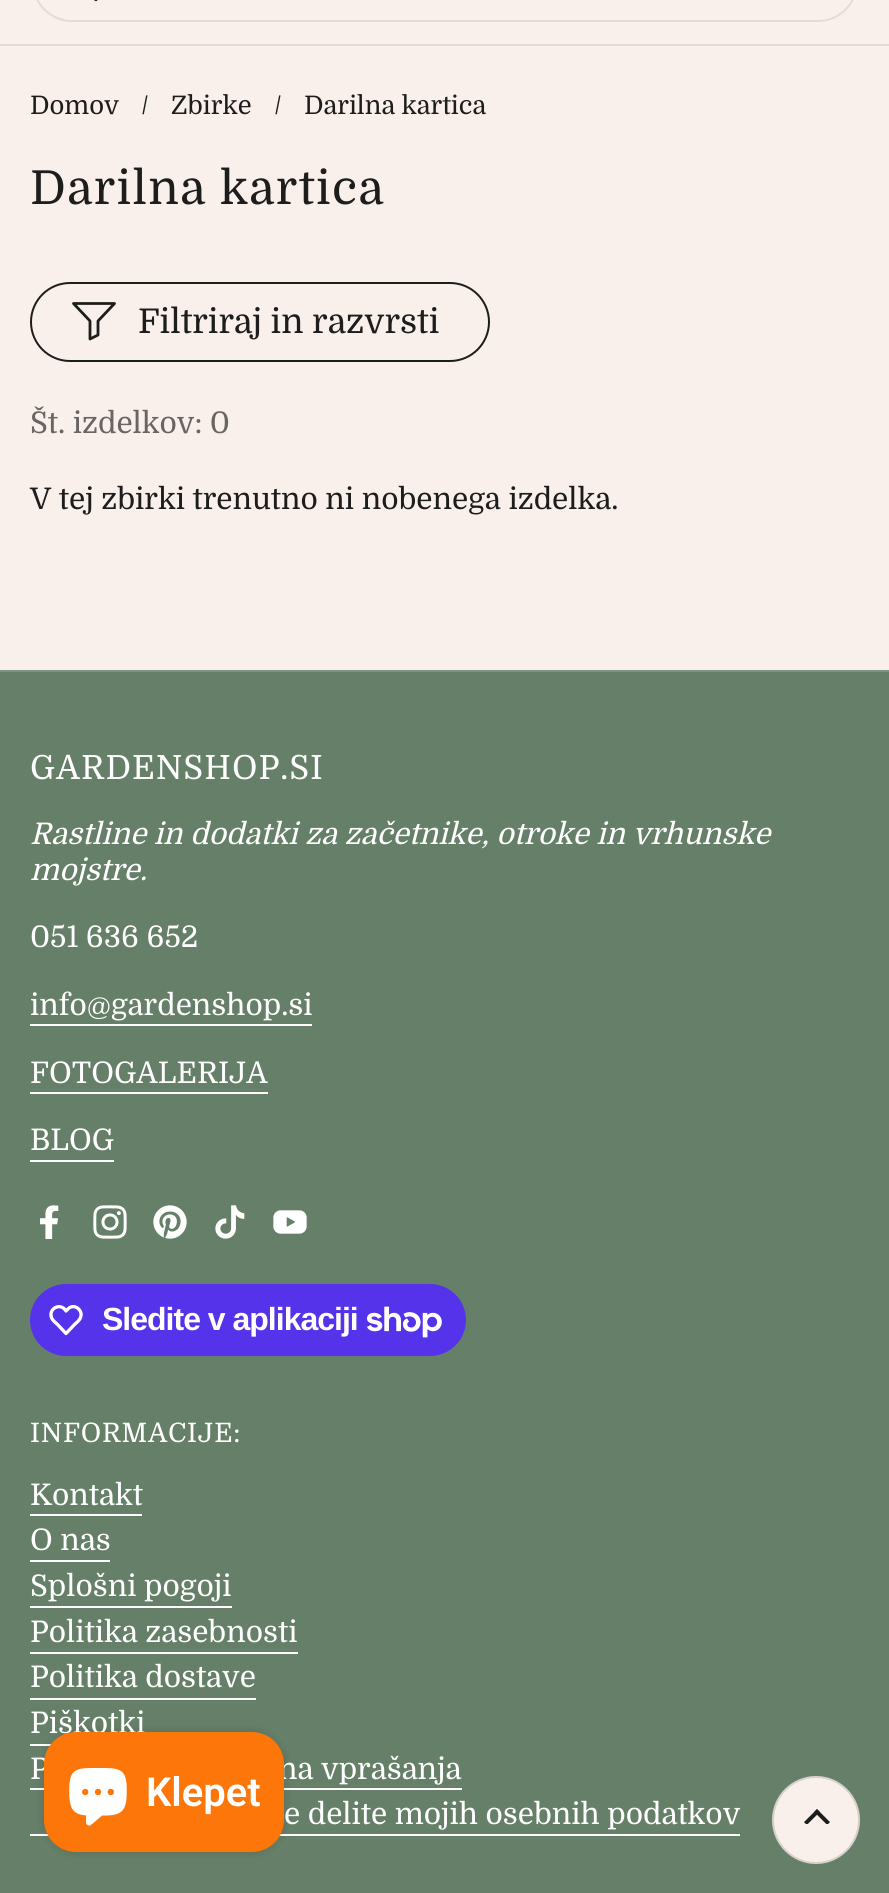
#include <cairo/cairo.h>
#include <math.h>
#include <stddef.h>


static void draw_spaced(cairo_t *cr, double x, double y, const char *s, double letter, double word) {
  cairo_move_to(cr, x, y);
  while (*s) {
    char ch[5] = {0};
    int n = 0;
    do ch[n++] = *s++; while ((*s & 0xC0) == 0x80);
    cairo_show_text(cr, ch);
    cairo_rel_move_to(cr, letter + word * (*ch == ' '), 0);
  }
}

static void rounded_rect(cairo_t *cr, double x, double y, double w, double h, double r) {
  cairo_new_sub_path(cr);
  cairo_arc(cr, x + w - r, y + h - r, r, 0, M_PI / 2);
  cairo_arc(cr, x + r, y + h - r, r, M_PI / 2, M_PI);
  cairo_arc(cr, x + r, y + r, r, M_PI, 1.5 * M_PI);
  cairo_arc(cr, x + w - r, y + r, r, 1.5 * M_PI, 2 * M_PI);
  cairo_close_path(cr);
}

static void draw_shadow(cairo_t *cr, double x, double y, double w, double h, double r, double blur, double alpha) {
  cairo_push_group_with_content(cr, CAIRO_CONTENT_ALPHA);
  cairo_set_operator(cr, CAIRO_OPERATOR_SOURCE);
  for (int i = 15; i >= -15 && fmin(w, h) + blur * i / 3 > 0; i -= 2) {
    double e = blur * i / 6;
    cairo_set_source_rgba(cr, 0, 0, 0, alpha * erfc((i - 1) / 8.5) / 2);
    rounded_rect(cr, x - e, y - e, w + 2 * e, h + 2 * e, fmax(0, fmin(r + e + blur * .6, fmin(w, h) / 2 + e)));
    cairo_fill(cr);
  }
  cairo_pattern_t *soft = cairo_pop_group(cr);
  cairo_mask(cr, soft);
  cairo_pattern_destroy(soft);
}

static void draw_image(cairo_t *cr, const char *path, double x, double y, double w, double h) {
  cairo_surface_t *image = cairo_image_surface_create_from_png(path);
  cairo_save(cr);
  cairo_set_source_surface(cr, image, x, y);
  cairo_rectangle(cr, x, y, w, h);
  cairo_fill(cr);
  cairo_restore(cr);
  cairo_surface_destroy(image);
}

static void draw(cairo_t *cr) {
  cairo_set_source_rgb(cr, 249 / 255.0, 240 / 255.0, 235 / 255.0);
  cairo_paint(cr);
  cairo_set_source_rgb(cr, 227 / 255.0, 219 / 255.0, 214 / 255.0);
  cairo_rectangle(cr, 0, 44, 889, 2);
  cairo_fill(cr);
  rounded_rect(cr, 33, -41, 824, 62, 39);
  cairo_stroke(cr);
  cairo_set_source_rgb(cr, 29 / 255.0, 29 / 255.0, 29 / 255.0);
  cairo_new_path(cr);
  cairo_move_to(cr, 90, -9.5);
  cairo_line_to(cr, 89, -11);
  cairo_line_to(cr, 86, -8);
  cairo_line_to(cr, 87.5, -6.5);
  cairo_close_path(cr);
  cairo_move_to(cr, 94.5, 0.5);
  cairo_curve_to(cr, 96.5, 2.5, 99, -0.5, 97.5, -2.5);
  cairo_close_path(cr);
  cairo_move_to(cr, 87.5, -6.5);
  cairo_line_to(cr, 94.5, 0.5);
  cairo_line_to(cr, 97.5, -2.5);
  cairo_line_to(cr, 90, -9.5);
  cairo_close_path(cr);
  cairo_fill(cr);
  rounded_rect(cr, 31, 283, 458, 78, 39);
  cairo_stroke(cr);
  cairo_new_path(cr);
  cairo_move_to(cr, 73.5, 303.5);
  cairo_line_to(cr, 114.5, 303.5);
  cairo_line_to(cr, 98, 321);
  cairo_line_to(cr, 98, 335);
  cairo_line_to(cr, 90, 339);
  cairo_line_to(cr, 90, 321);
  cairo_close_path(cr);
  cairo_set_line_width(cr, 2.8);
  cairo_set_line_cap(cr, CAIRO_LINE_CAP_ROUND);
  cairo_set_line_join(cr, CAIRO_LINE_JOIN_ROUND);
  cairo_stroke(cr);
  cairo_set_source_rgb(cr, 102 / 255.0, 127 / 255.0, 104 / 255.0);
  cairo_rectangle(cr, 0, 672, 889, 1221);
  cairo_fill(cr);
  cairo_set_source_rgb(cr, 125 / 255.0, 146 / 255.0, 127 / 255.0);
  cairo_rectangle(cr, 0, 670, 889, 2);
  cairo_fill(cr);
  cairo_set_source_rgb(cr, 1, 1, 1);
  cairo_rectangle(cr, 30, 1024, 282, 2);
  cairo_fill(cr);
  cairo_rectangle(cr, 30, 1092, 238, 2);
  cairo_fill(cr);
  cairo_rectangle(cr, 30, 1160, 84, 2);
  cairo_fill(cr);
  draw_image(cr, "images/1.png", 40, 1205, 19, 34);
  draw_image(cr, "images/2.png", 93, 1205, 34, 34);
  draw_image(cr, "images/3.png", 153, 1205, 34, 34);
  draw_image(cr, "images/4.png", 215, 1205, 30, 34);
  draw_image(cr, "images/5.png", 273, 1210, 34, 24);
  cairo_set_source_rgb(cr, 84 / 255.0, 51 / 255.0, 235 / 255.0);
  rounded_rect(cr, 30, 1284, 436, 72, 36);
  cairo_fill(cr);
  cairo_new_path(cr);
  cairo_move_to(cr, 64.5, 1309);
  cairo_line_to(cr, 66, 1311);
  cairo_curve_to(cr, 67.5, 1309.5, 69, 1307.5, 71, 1307);
  cairo_curve_to(cr, 77, 1305, 83, 1311.5, 80.5, 1317.5);
  cairo_curve_to(cr, 79.5, 1320.5, 76.5, 1322.5, 74.5, 1324.5);
  cairo_line_to(cr, 66, 1333.5);
  cairo_line_to(cr, 57.5, 1324.5);
  cairo_curve_to(cr, 55.5, 1322.5, 52.5, 1320.5, 51.5, 1317.5);
  cairo_curve_to(cr, 48.5, 1309.5, 58.5, 1303, 64.5, 1309);
  cairo_close_path(cr);
  cairo_set_source_rgb(cr, 1, 1, 1);
  cairo_set_line_width(cr, 3.3);
  cairo_set_line_cap(cr, CAIRO_LINE_CAP_BUTT);
  cairo_stroke(cr);
  draw_image(cr, "images/6.png", 367, 1306, 75, 32);
  cairo_rectangle(cr, 30, 1514, 112, 2);
  cairo_fill(cr);
  cairo_rectangle(cr, 30, 1560, 80, 2);
  cairo_fill(cr);
  cairo_rectangle(cr, 30, 1606, 202, 2);
  cairo_fill(cr);
  cairo_rectangle(cr, 30, 1652, 268, 2);
  cairo_fill(cr);
  cairo_rectangle(cr, 30, 1698, 226, 2);
  cairo_fill(cr);
  cairo_rectangle(cr, 30, 1744, 21, 2);
  cairo_fill(cr);
  cairo_rectangle(cr, 30, 1788, 432, 2);
  cairo_fill(cr);
  cairo_rectangle(cr, 30, 1834, 710, 2);
  cairo_fill(cr);
  cairo_set_source_rgb(cr, 0, 0, 0);
  draw_shadow(cr, 44, 1732, 240, 120, 32, 5, 0.15);
  cairo_set_source_rgb(cr, 249 / 255.0, 240 / 255.0, 235 / 255.0);
  cairo_arc(cr, 816, 1820, 44, 0, 2 * M_PI);
  cairo_fill(cr);
  cairo_arc(cr, 816, 1820, 43, 0, 2 * M_PI);
  cairo_set_source_rgba(cr, 29 / 255.0, 29 / 255.0, 29 / 255.0, 0.15);
  cairo_set_line_width(cr, 2);
  cairo_set_line_join(cr, CAIRO_LINE_JOIN_MITER);
  cairo_stroke(cr);
  draw_image(cr, "images/8.png", 804, 1809, 26, 15);
  cairo_select_font_face(cr, "Domine", CAIRO_FONT_SLANT_NORMAL, CAIRO_FONT_WEIGHT_NORMAL);
  cairo_set_font_size(cr, 25.5);
  cairo_set_source_rgb(cr, 29 / 255.0, 29 / 255.0, 29 / 255.0);
  cairo_move_to(cr, 30, 114);
  cairo_show_text(cr, "Domov");
  cairo_move_to(cr, 141, 114);
  cairo_show_text(cr, "/");
  cairo_move_to(cr, 171, 114);
  cairo_show_text(cr, "Zbirke");
  cairo_move_to(cr, 274, 114);
  cairo_show_text(cr, "/");
  cairo_move_to(cr, 304, 114);
  cairo_show_text(cr, "Darilna kartica");
  cairo_set_font_size(cr, 46.75);
  draw_spaced(cr, 30, 204, "Darilna kartica", 1.4, 0);
  cairo_set_font_size(cr, 34);
  cairo_move_to(cr, 138, 333);
  cairo_show_text(cr, "Filtriraj in razvrsti");
  cairo_set_font_size(cr, 29.75);
  cairo_set_source_rgb(cr, 104 / 255.0, 101 / 255.0, 99 / 255.0);
  cairo_move_to(cr, 30, 433);
  cairo_show_text(cr, "Št. izdelkov: 0");
  cairo_set_source_rgb(cr, 29 / 255.0, 29 / 255.0, 29 / 255.0);
  cairo_move_to(cr, 30, 509);
  cairo_show_text(cr, "V tej zbirki trenutno ni nobenega izdelka.");
  cairo_set_font_size(cr, 33.25);
  cairo_set_source_rgb(cr, 1, 1, 1);
  draw_spaced(cr, 30, 779, "GARDENSHOP.SI", 1, 0);
  cairo_select_font_face(cr, "Domine", CAIRO_FONT_SLANT_ITALIC, CAIRO_FONT_WEIGHT_NORMAL);
  cairo_set_font_size(cr, 29.75);
  cairo_move_to(cr, 30, 844);
  cairo_show_text(cr, "Rastline in dodatki za začetnike, otroke in vrhunske");
  cairo_move_to(cr, 30, 880);
  cairo_show_text(cr, "mojstre.");
  cairo_select_font_face(cr, "Domine", CAIRO_FONT_SLANT_NORMAL, CAIRO_FONT_WEIGHT_NORMAL);
  cairo_move_to(cr, 30, 947);
  cairo_show_text(cr, "051 636 652");
  cairo_move_to(cr, 30, 1015);
  cairo_show_text(cr, "info@gardenshop.si");
  cairo_move_to(cr, 30, 1083);
  cairo_show_text(cr, "FOTOGALERIJA");
  cairo_move_to(cr, 30, 1150);
  cairo_show_text(cr, "BLOG");
  cairo_select_font_face(cr, "Liberation Sans", CAIRO_FONT_SLANT_NORMAL, CAIRO_FONT_WEIGHT_BOLD);
  cairo_set_font_size(cr, 32);
  draw_spaced(cr, 102, 1330, "Sledite v aplikaciji", -1, 0);
  cairo_select_font_face(cr, "Domine", CAIRO_FONT_SLANT_NORMAL, CAIRO_FONT_WEIGHT_NORMAL);
  cairo_set_font_size(cr, 26.75);
  draw_spaced(cr, 30, 1442, "INFORMACIJE:", 0.75, 0);
  cairo_set_font_size(cr, 29.75);
  cairo_move_to(cr, 30, 1505);
  cairo_show_text(cr, "Kontakt");
  cairo_move_to(cr, 30, 1550);
  cairo_show_text(cr, "O nas");
  cairo_move_to(cr, 30, 1596);
  cairo_show_text(cr, "Splošni pogoji");
  cairo_move_to(cr, 30, 1642);
  cairo_show_text(cr, "Politika zasebnosti");
  cairo_move_to(cr, 30, 1687);
  cairo_show_text(cr, "Politika dostave");
  cairo_move_to(cr, 30, 1733);
  cairo_show_text(cr, "Piškotki");
  cairo_move_to(cr, 30, 1779);
  cairo_show_text(cr, "P");
  cairo_move_to(cr, 278, 1779);
  cairo_show_text(cr, "na vprašanja");
  cairo_move_to(cr, 284, 1824);
  cairo_show_text(cr, "e delite mojih osebnih podatkov");
  cairo_set_source_rgb(cr, 252 / 255.0, 118 / 255.0, 9 / 255.0);
  rounded_rect(cr, 44, 1732, 240, 120, 32);
  cairo_fill(cr);
  draw_image(cr, "images/7.png", 69, 1768, 58, 58);
  cairo_select_font_face(cr, "Roboto SemiBold", CAIRO_FONT_SLANT_NORMAL, CAIRO_FONT_WEIGHT_NORMAL);
  cairo_set_font_size(cr, 40);
  cairo_set_source_rgb(cr, 1, 1, 1);
  cairo_move_to(cr, 146, 1806);
  cairo_show_text(cr, "Klepet");
}

int main(void) {
  cairo_surface_t *surface = cairo_image_surface_create(CAIRO_FORMAT_RGB24, 889, 1893);
  cairo_t *cr = cairo_create(surface);
  cairo_font_options_t *options = cairo_font_options_create();
  cairo_font_options_set_hint_metrics(options, CAIRO_HINT_METRICS_OFF);
  cairo_font_options_set_hint_style(options, CAIRO_HINT_STYLE_NONE);
  cairo_set_font_options(cr, options);
  cairo_set_miter_limit(cr, 4);
  draw(cr);
  cairo_surface_write_to_png(surface, "out.png");
  cairo_font_options_destroy(options);
  cairo_destroy(cr);
  cairo_surface_destroy(surface);
  return 0;
}
